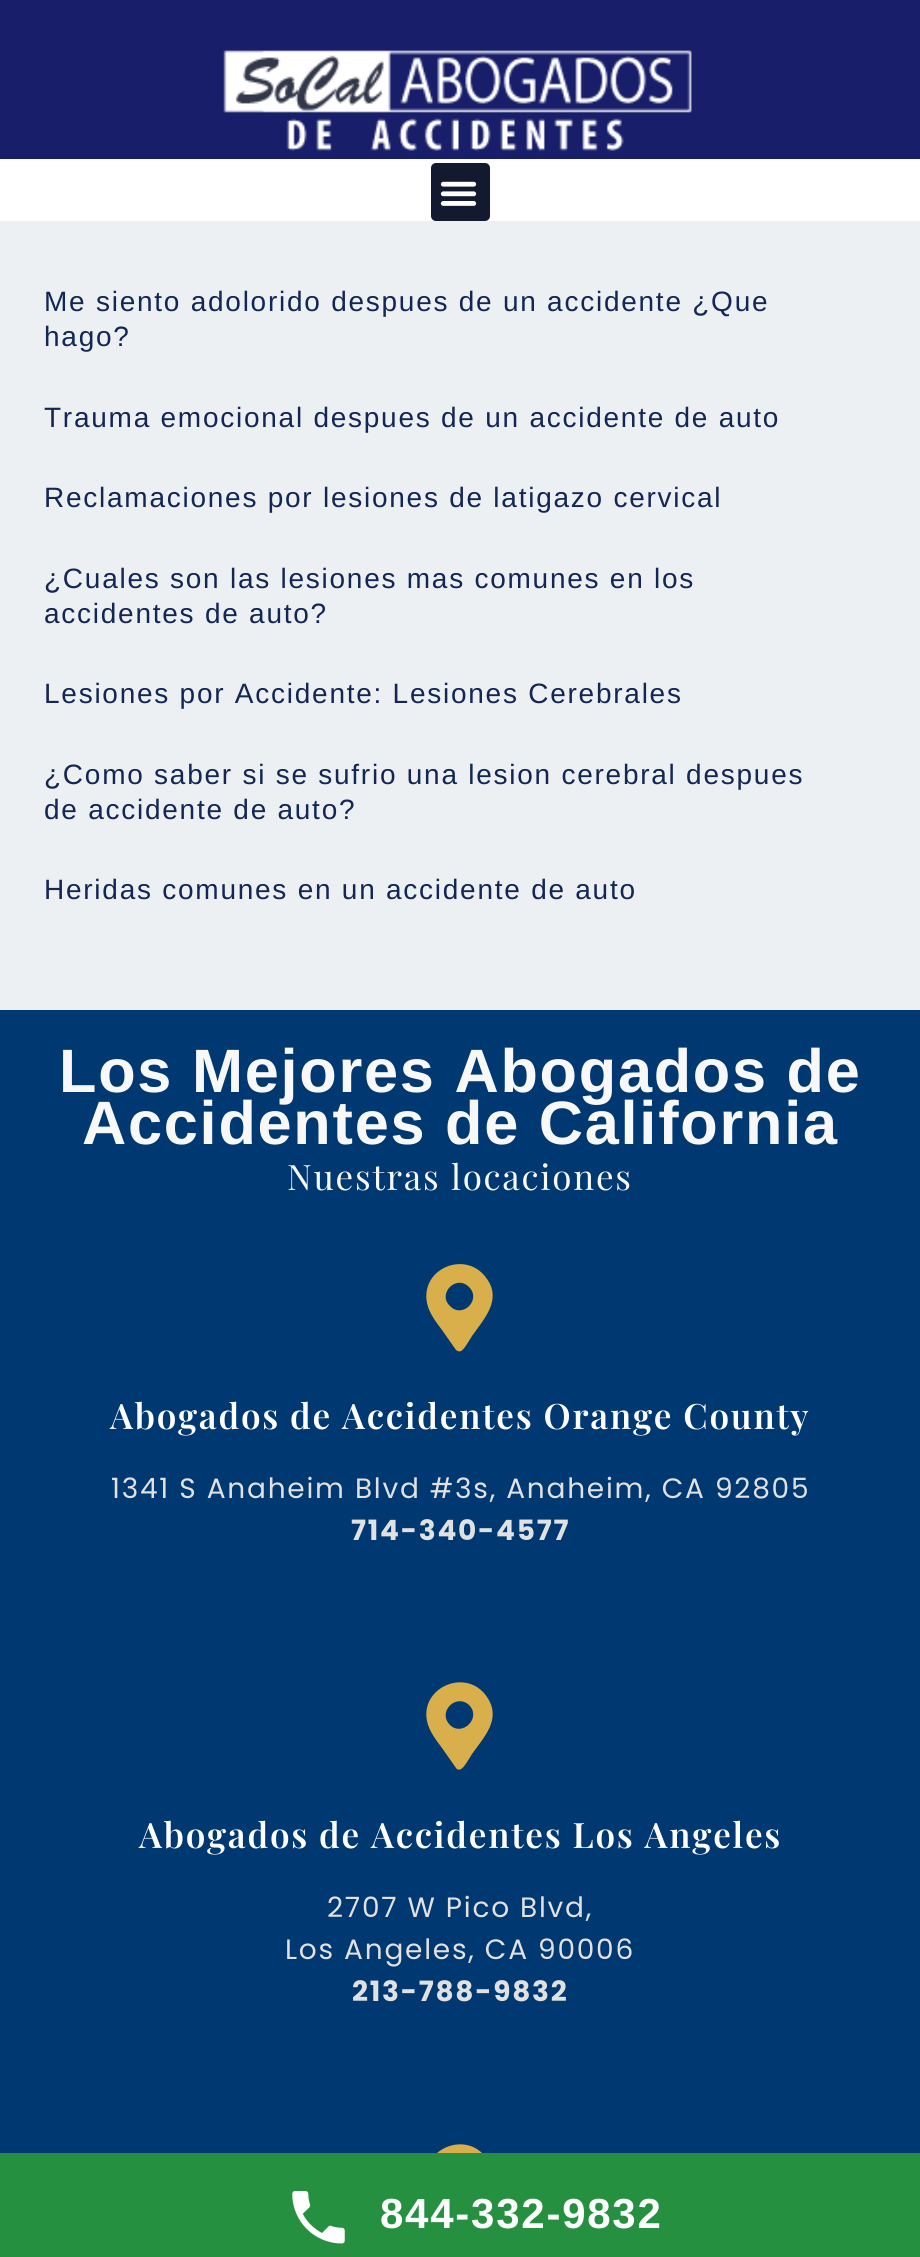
#include <cairo/cairo.h>
#include <math.h>
#include <stddef.h>


static void draw_spaced(cairo_t *cr, double x, double y, const char *s, double letter, double word) {
  cairo_move_to(cr, x, y);
  while (*s) {
    char ch[5] = {0};
    int n = 0;
    do ch[n++] = *s++; while ((*s & 0xC0) == 0x80);
    cairo_show_text(cr, ch);
    cairo_rel_move_to(cr, letter + word * (*ch == ' '), 0);
  }
}

static void rounded_rect(cairo_t *cr, double x, double y, double w, double h, double r) {
  cairo_new_sub_path(cr);
  cairo_arc(cr, x + w - r, y + h - r, r, 0, M_PI / 2);
  cairo_arc(cr, x + r, y + h - r, r, M_PI / 2, M_PI);
  cairo_arc(cr, x + r, y + r, r, M_PI, 1.5 * M_PI);
  cairo_arc(cr, x + w - r, y + r, r, 1.5 * M_PI, 2 * M_PI);
  cairo_close_path(cr);
}

static void draw_image(cairo_t *cr, const char *path, double x, double y, double w, double h) {
  cairo_surface_t *image = cairo_image_surface_create_from_png(path);
  cairo_save(cr);
  cairo_set_source_surface(cr, image, x, y);
  cairo_rectangle(cr, x, y, w, h);
  cairo_fill(cr);
  cairo_restore(cr);
  cairo_surface_destroy(image);
}

static void draw(cairo_t *cr) {
  cairo_set_source_rgb(cr, 236 / 255.0, 240 / 255.0, 243 / 255.0);
  cairo_paint(cr);
  cairo_set_source_rgb(cr, 1, 1, 1);
  cairo_rectangle(cr, 0, 159, 920, 62);
  cairo_fill(cr);
  cairo_set_source_rgb(cr, 24 / 255.0, 30 / 255.0, 106 / 255.0);
  cairo_rectangle(cr, 0, 0, 920, 159);
  cairo_fill(cr);
  draw_image(cr, "images/1.png", 223, 50, 469, 101);
  cairo_set_source_rgb(cr, 19 / 255.0, 26 / 255.0, 47 / 255.0);
  rounded_rect(cr, 431, 163, 59, 58, 5);
  cairo_fill(cr);
  draw_image(cr, "images/2.png", 440, 181, 37, 25);
  cairo_set_source_rgb(cr, 0, 56 / 255.0, 114 / 255.0);
  cairo_rectangle(cr, 0, 1010, 920, 1143);
  cairo_fill(cr);
  cairo_set_source_rgb(cr, 216 / 255.0, 175 / 255.0, 74 / 255.0);
  cairo_new_path(cr);
  cairo_move_to(cr, 456, 1350);
  cairo_line_to(cr, 442, 1330);
  cairo_curve_to(cr, 436, 1322, 429, 1313, 427, 1303);
  cairo_curve_to(cr, 420, 1268, 467, 1249, 487, 1279);
  cairo_curve_to(cr, 502, 1300, 484, 1319, 472, 1336);
  cairo_curve_to(cr, 470, 1339, 464, 1350, 461, 1351);
  cairo_curve_to(cr, 460, 1352, 457, 1351, 456, 1350);
  cairo_close_path(cr);
  cairo_move_to(cr, 450, 1306);
  cairo_curve_to(cr, 462, 1319, 482, 1300, 469, 1287);
  cairo_curve_to(cr, 456, 1274, 437, 1294, 450, 1306);
  cairo_close_path(cr);
  cairo_fill(cr);
  cairo_new_path(cr);
  cairo_move_to(cr, 456, 1768);
  cairo_line_to(cr, 442, 1748);
  cairo_curve_to(cr, 436, 1740, 429, 1731, 427, 1721);
  cairo_curve_to(cr, 420, 1687, 467, 1667, 487, 1697);
  cairo_curve_to(cr, 502, 1719, 484, 1737, 472, 1754);
  cairo_curve_to(cr, 470, 1757, 464, 1768, 461, 1769);
  cairo_curve_to(cr, 460, 1770, 457, 1770, 456, 1768);
  cairo_close_path(cr);
  cairo_move_to(cr, 450, 1725);
  cairo_curve_to(cr, 462, 1737, 482, 1718, 469, 1705);
  cairo_curve_to(cr, 456, 1693, 437, 1712, 450, 1725);
  cairo_close_path(cr);
  cairo_fill(cr);
  cairo_new_path(cr);
  cairo_move_to(cr, 456, 2230);
  cairo_line_to(cr, 442, 2210);
  cairo_curve_to(cr, 436, 2202, 429, 2193, 427, 2183);
  cairo_curve_to(cr, 420, 2149, 467, 2129, 487, 2159);
  cairo_curve_to(cr, 502, 2181, 484, 2199, 472, 2216);
  cairo_curve_to(cr, 470, 2219, 464, 2230, 461, 2231);
  cairo_curve_to(cr, 460, 2232, 457, 2232, 456, 2230);
  cairo_close_path(cr);
  cairo_move_to(cr, 450, 2187);
  cairo_curve_to(cr, 462, 2199, 482, 2180, 469, 2167);
  cairo_curve_to(cr, 456, 2155, 437, 2174, 450, 2187);
  cairo_close_path(cr);
  cairo_fill(cr);
  cairo_set_source_rgb(cr, 38 / 255.0, 144 / 255.0, 65 / 255.0);
  cairo_rectangle(cr, 0, 2153, 920, 104);
  cairo_fill(cr);
  draw_image(cr, "images/3.png", 292, 2191, 53, 53);
  cairo_select_font_face(cr, "Liberation Sans", CAIRO_FONT_SLANT_NORMAL, CAIRO_FONT_WEIGHT_NORMAL);
  cairo_set_font_size(cr, 28);
  cairo_set_source_rgb(cr, 20 / 255.0, 38 / 255.0, 83 / 255.0);
  draw_spaced(cr, 44, 311, "Me siento adolorido despues de un accidente ¿Que", 1.75, 0);
  draw_spaced(cr, 44, 346, "hago?", 1.75, 0);
  draw_spaced(cr, 44, 427, "Trauma emocional despues de un accidente de auto", 1.75, 0);
  draw_spaced(cr, 44, 507, "Reclamaciones por lesiones de latigazo cervical", 1.75, 0);
  draw_spaced(cr, 44, 588, "¿Cuales son las lesiones mas comunes en los", 1.75, 0);
  draw_spaced(cr, 44, 623, "accidentes de auto?", 1.75, 0);
  draw_spaced(cr, 44, 703, "Lesiones por Accidente: Lesiones Cerebrales", 1.75, 0);
  draw_spaced(cr, 44, 784, "¿Como saber si se sufrio una lesion cerebral despues", 1.75, 0);
  draw_spaced(cr, 44, 819, "de accidente de auto?", 1.75, 0);
  draw_spaced(cr, 44, 899, "Heridas comunes en un accidente de auto", 1.75, 0);
  cairo_select_font_face(cr, "Liberation Sans", CAIRO_FONT_SLANT_NORMAL, CAIRO_FONT_WEIGHT_BOLD);
  cairo_set_font_size(cr, 61.25);
  cairo_set_source_rgb(cr, 248 / 255.0, 248 / 255.0, 248 / 255.0);
  draw_spaced(cr, 59, 1092, "Los Mejores Abogados de", 1.75, 0);
  draw_spaced(cr, 82, 1144, "Accidentes de California", 1.75, 0);
  cairo_select_font_face(cr, "Playfair Display", CAIRO_FONT_SLANT_NORMAL, CAIRO_FONT_WEIGHT_NORMAL);
  cairo_set_font_size(cr, 35);
  draw_spaced(cr, 287, 1190, "Nuestras locaciones", 1.75, 0);
  cairo_select_font_face(cr, "Playfair Display SemiBold", CAIRO_FONT_SLANT_NORMAL, CAIRO_FONT_WEIGHT_NORMAL);
  cairo_set_source_rgb(cr, 1, 1, 1);
  draw_spaced(cr, 110, 1429, "Abogados de Accidentes Orange County", 1.75, 0);
  cairo_select_font_face(cr, "Poppins", CAIRO_FONT_SLANT_NORMAL, CAIRO_FONT_WEIGHT_NORMAL);
  cairo_set_font_size(cr, 28);
  cairo_set_source_rgb(cr, 225 / 255.0, 225 / 255.0, 225 / 255.0);
  draw_spaced(cr, 111, 1498, "1341 S Anaheim Blvd #3s, Anaheim, CA 92805", 1.75, 0);
  cairo_select_font_face(cr, "Poppins", CAIRO_FONT_SLANT_NORMAL, CAIRO_FONT_WEIGHT_BOLD);
  draw_spaced(cr, 351, 1540, "714-340-4577", 1.75, 0);
  cairo_select_font_face(cr, "Playfair Display SemiBold", CAIRO_FONT_SLANT_NORMAL, CAIRO_FONT_WEIGHT_NORMAL);
  cairo_set_font_size(cr, 35);
  cairo_set_source_rgb(cr, 1, 1, 1);
  draw_spaced(cr, 139, 1848, "Abogados de Accidentes Los Angeles", 1.75, 0);
  cairo_select_font_face(cr, "Poppins", CAIRO_FONT_SLANT_NORMAL, CAIRO_FONT_WEIGHT_NORMAL);
  cairo_set_font_size(cr, 28);
  cairo_set_source_rgb(cr, 225 / 255.0, 225 / 255.0, 225 / 255.0);
  draw_spaced(cr, 327, 1917, "2707 W Pico Blvd,", 1.75, 0);
  draw_spaced(cr, 285, 1959, "Los Angeles, CA 90006", 1.75, 0);
  cairo_select_font_face(cr, "Poppins", CAIRO_FONT_SLANT_NORMAL, CAIRO_FONT_WEIGHT_BOLD);
  draw_spaced(cr, 352, 2001, "213-788-9832", 1.75, 0);
  cairo_select_font_face(cr, "Liberation Sans", CAIRO_FONT_SLANT_NORMAL, CAIRO_FONT_WEIGHT_BOLD);
  cairo_set_font_size(cr, 42);
  cairo_set_source_rgb(cr, 1, 1, 1);
  draw_spaced(cr, 380, 2228, "844-332-9832", 1.75, 0);
}

int main(void) {
  cairo_surface_t *surface = cairo_image_surface_create(CAIRO_FORMAT_RGB24, 920, 2257);
  cairo_t *cr = cairo_create(surface);
  cairo_font_options_t *options = cairo_font_options_create();
  cairo_font_options_set_hint_metrics(options, CAIRO_HINT_METRICS_OFF);
  cairo_font_options_set_hint_style(options, CAIRO_HINT_STYLE_NONE);
  cairo_set_font_options(cr, options);
  cairo_set_miter_limit(cr, 4);
  draw(cr);
  cairo_surface_write_to_png(surface, "out.png");
  cairo_font_options_destroy(options);
  cairo_destroy(cr);
  cairo_surface_destroy(surface);
  return 0;
}
